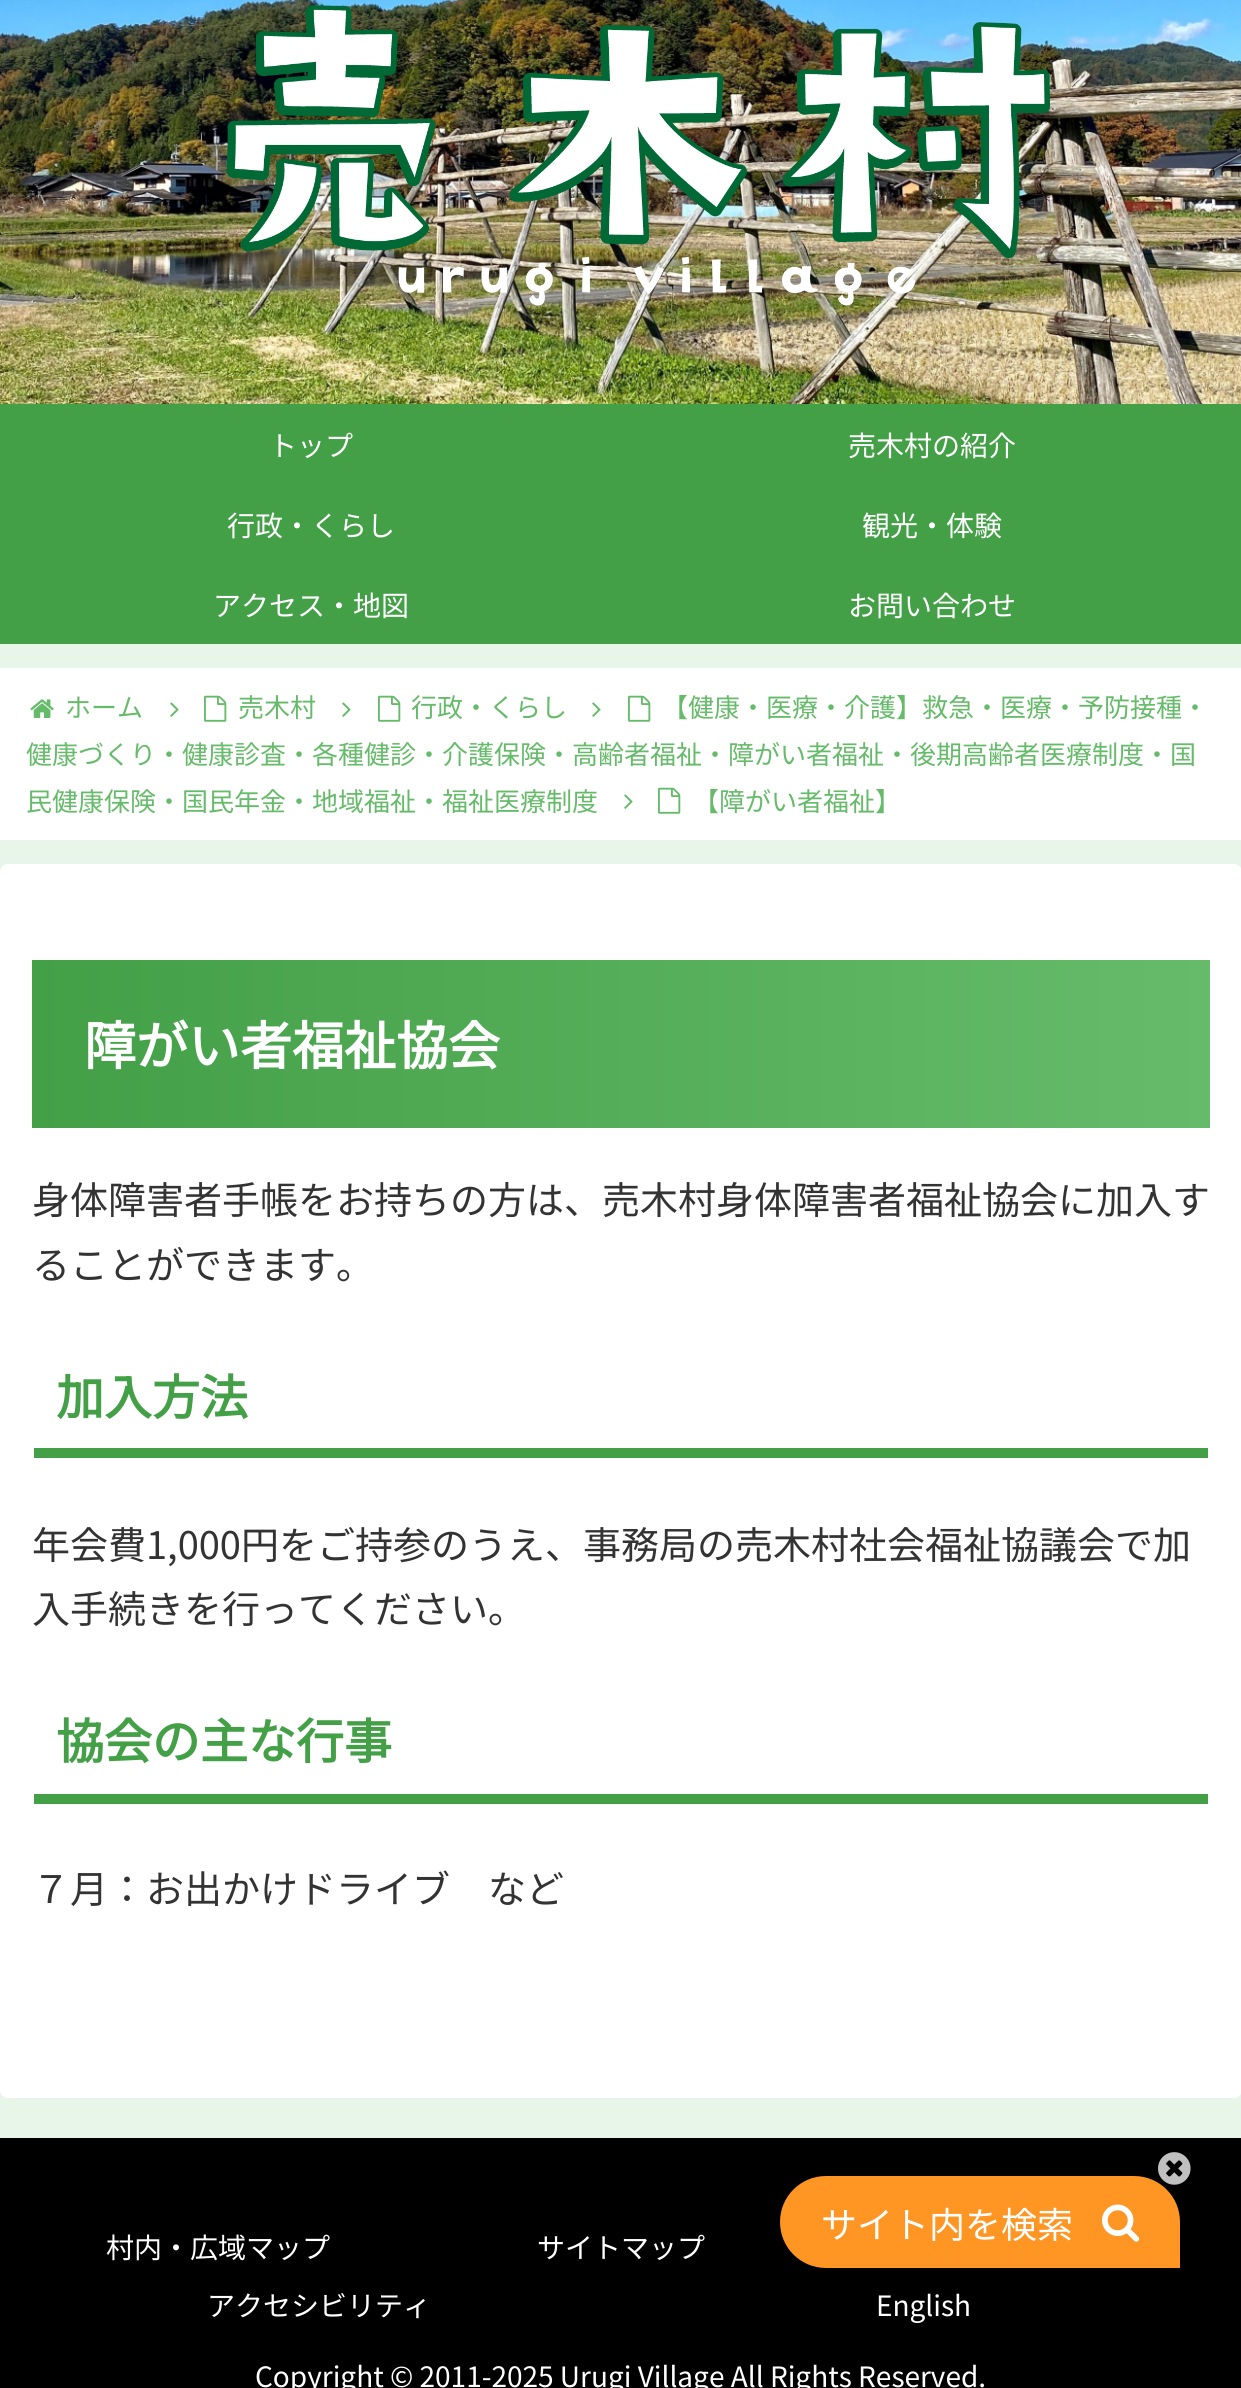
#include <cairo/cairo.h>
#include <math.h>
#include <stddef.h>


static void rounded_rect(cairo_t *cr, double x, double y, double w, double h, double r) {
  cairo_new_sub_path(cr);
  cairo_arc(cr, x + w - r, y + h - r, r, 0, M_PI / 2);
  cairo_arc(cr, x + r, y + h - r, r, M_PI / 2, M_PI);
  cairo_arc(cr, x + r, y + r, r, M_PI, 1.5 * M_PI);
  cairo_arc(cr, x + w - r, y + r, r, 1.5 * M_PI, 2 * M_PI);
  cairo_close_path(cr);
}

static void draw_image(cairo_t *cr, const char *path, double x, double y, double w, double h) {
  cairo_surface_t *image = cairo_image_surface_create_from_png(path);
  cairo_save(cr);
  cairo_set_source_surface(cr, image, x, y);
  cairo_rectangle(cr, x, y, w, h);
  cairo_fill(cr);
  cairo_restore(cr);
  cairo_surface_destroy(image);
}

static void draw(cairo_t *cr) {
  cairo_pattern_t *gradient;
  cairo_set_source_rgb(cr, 232 / 255.0, 245 / 255.0, 233 / 255.0);
  cairo_paint(cr);
  draw_image(cr, "images/1.png", 0, 0, 1241, 404);
  draw_image(cr, "images/2.png", 226, 5, 824, 301);
  cairo_set_source_rgb(cr, 67 / 255.0, 160 / 255.0, 71 / 255.0);
  cairo_rectangle(cr, 0, 404, 1241, 80);
  cairo_fill(cr);
  cairo_rectangle(cr, 0, 484, 1241, 80);
  cairo_fill(cr);
  cairo_rectangle(cr, 0, 564, 1241, 80);
  cairo_fill(cr);
  cairo_set_source_rgb(cr, 1, 1, 1);
  cairo_rectangle(cr, 0, 668, 1241, 172);
  cairo_fill(cr);
  draw_image(cr, "images/3.png", 628, 695, 23, 27);
  draw_image(cr, "images/4.png", 624, 794, 9, 15);
  draw_image(cr, "images/5.png", 30, 699, 24, 19);
  draw_image(cr, "images/4.png", 170, 702, 9, 15);
  draw_image(cr, "images/3.png", 204, 695, 23, 27);
  draw_image(cr, "images/4.png", 342, 702, 9, 15);
  draw_image(cr, "images/3.png", 378, 695, 23, 27);
  draw_image(cr, "images/4.png", 592, 702, 9, 15);
  draw_image(cr, "images/3.png", 658, 787, 23, 27);
  rounded_rect(cr, 0, 864, 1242, 1234, 8);
  cairo_fill(cr);
  gradient = cairo_pattern_create_linear(32, 1044, 1210, 1044);
  cairo_pattern_add_color_stop_rgba(gradient, 0, 67 / 255.0, 160 / 255.0, 71 / 255.0, 1);
  cairo_pattern_add_color_stop_rgba(gradient, 1, 102 / 255.0, 187 / 255.0, 106 / 255.0, 1);
  cairo_set_source(cr, gradient);
  cairo_pattern_destroy(gradient);
  cairo_rectangle(cr, 32, 960, 1178, 168);
  cairo_fill(cr);
  cairo_set_source_rgb(cr, 67 / 255.0, 160 / 255.0, 71 / 255.0);
  cairo_rectangle(cr, 34, 1448, 1174, 10);
  cairo_fill(cr);
  cairo_rectangle(cr, 34, 1794, 1174, 10);
  cairo_fill(cr);
  cairo_set_source_rgb(cr, 0, 0, 0);
  cairo_rectangle(cr, 0, 2138, 1241, 250);
  cairo_fill(cr);
  cairo_set_source_rgb(cr, 1, 149 / 255.0, 34 / 255.0);
  cairo_new_path(cr);
  cairo_move_to(cr, 826, 2176);
  cairo_line_to(cr, 1134, 2176);
  cairo_curve_to(cr, 1159.5, 2176, 1180, 2196.5, 1180, 2222);
  cairo_line_to(cr, 1180, 2268);
  cairo_line_to(cr, 826, 2268);
  cairo_curve_to(cr, 800.5, 2268, 780, 2247.5, 780, 2222);
  cairo_curve_to(cr, 780, 2196.5, 800.5, 2176, 826, 2176);
  cairo_close_path(cr);
  cairo_fill(cr);
  draw_image(cr, "images/6.png", 1158, 2152, 33, 33);
  draw_image(cr, "images/7.png", 1102, 2204, 38, 38);
  cairo_select_font_face(cr, "Noto Sans JP Thin", CAIRO_FONT_SLANT_NORMAL, CAIRO_FONT_WEIGHT_NORMAL);
  cairo_set_font_size(cr, 28);
  cairo_set_source_rgb(cr, 1, 1, 1);
  cairo_move_to(cr, 269, 456);
  cairo_show_text(cr, "トップ");
  cairo_move_to(cr, 848, 456);
  cairo_show_text(cr, "売木村の紹介");
  cairo_move_to(cr, 227, 536);
  cairo_show_text(cr, "行政・くらし");
  cairo_move_to(cr, 862, 536);
  cairo_show_text(cr, "観光・体験");
  cairo_move_to(cr, 213, 616);
  cairo_show_text(cr, "アクセス・地図");
  cairo_move_to(cr, 848, 616);
  cairo_show_text(cr, "お問い合わせ");
  cairo_set_font_size(cr, 26);
  cairo_set_source_rgb(cr, 102 / 255.0, 187 / 255.0, 106 / 255.0);
  cairo_move_to(cr, 662, 717);
  cairo_show_text(cr, "【健康・医療・介護】救急・医療・予防接種・");
  cairo_move_to(cr, 26, 764);
  cairo_show_text(cr, "健康づくり・健康診査・各種健診・介護保険・高齢者福祉・障がい者福祉・後期高齢者医療制度・国");
  cairo_move_to(cr, 26, 811);
  cairo_show_text(cr, "民健康保険・国民年金・地域福祉・福祉医療制度");
  cairo_move_to(cr, 65, 717);
  cairo_show_text(cr, "ホーム");
  cairo_move_to(cr, 238, 717);
  cairo_show_text(cr, "売木村");
  cairo_move_to(cr, 411, 717);
  cairo_show_text(cr, "行政・くらし");
  cairo_move_to(cr, 693, 811);
  cairo_show_text(cr, "【障がい者福祉】");
  cairo_select_font_face(cr, "Noto Sans JP", CAIRO_FONT_SLANT_NORMAL, CAIRO_FONT_WEIGHT_BOLD);
  cairo_set_font_size(cr, 52);
  cairo_set_source_rgb(cr, 1, 1, 1);
  cairo_move_to(cr, 84, 1065);
  cairo_show_text(cr, "障がい者福祉協会");
  cairo_select_font_face(cr, "Noto Sans JP Thin", CAIRO_FONT_SLANT_NORMAL, CAIRO_FONT_WEIGHT_NORMAL);
  cairo_set_font_size(cr, 38);
  cairo_set_source_rgb(cr, 51 / 255.0, 51 / 255.0, 51 / 255.0);
  cairo_move_to(cr, 32, 1214);
  cairo_show_text(cr, "身体障害者手帳をお持ちの方は、売木村身体障害者福祉協会に加入す");
  cairo_move_to(cr, 32, 1279);
  cairo_show_text(cr, "ることができます。");
  cairo_select_font_face(cr, "Noto Sans JP", CAIRO_FONT_SLANT_NORMAL, CAIRO_FONT_WEIGHT_BOLD);
  cairo_set_font_size(cr, 48);
  cairo_set_source_rgb(cr, 67 / 255.0, 160 / 255.0, 71 / 255.0);
  cairo_move_to(cr, 56, 1415);
  cairo_show_text(cr, "加入方法");
  cairo_select_font_face(cr, "Noto Sans JP Thin", CAIRO_FONT_SLANT_NORMAL, CAIRO_FONT_WEIGHT_NORMAL);
  cairo_set_font_size(cr, 38);
  cairo_set_source_rgb(cr, 51 / 255.0, 51 / 255.0, 51 / 255.0);
  cairo_move_to(cr, 32, 1559);
  cairo_show_text(cr, "年会費1,000円をご持参のうえ、事務局の売木村社会福祉協議会で加");
  cairo_move_to(cr, 32, 1623);
  cairo_show_text(cr, "入手続きを行ってください。");
  cairo_select_font_face(cr, "Noto Sans JP", CAIRO_FONT_SLANT_NORMAL, CAIRO_FONT_WEIGHT_BOLD);
  cairo_set_font_size(cr, 48);
  cairo_set_source_rgb(cr, 67 / 255.0, 160 / 255.0, 71 / 255.0);
  cairo_move_to(cr, 56, 1759);
  cairo_show_text(cr, "協会の主な行事");
  cairo_select_font_face(cr, "Noto Sans JP Thin", CAIRO_FONT_SLANT_NORMAL, CAIRO_FONT_WEIGHT_NORMAL);
  cairo_set_font_size(cr, 38);
  cairo_set_source_rgb(cr, 51 / 255.0, 51 / 255.0, 51 / 255.0);
  cairo_move_to(cr, 32, 1903);
  cairo_show_text(cr, "７月：お出かけドライブ　など");
  cairo_set_font_size(cr, 36);
  cairo_set_source_rgb(cr, 1, 1, 1);
  cairo_move_to(cr, 821, 2238);
  cairo_show_text(cr, "サイト内を検索");
  cairo_set_font_size(cr, 28);
  cairo_move_to(cr, 106, 2258);
  cairo_show_text(cr, "村内・広域マップ");
  cairo_move_to(cr, 537, 2258);
  cairo_show_text(cr, "サイトマップ");
  cairo_move_to(cr, 207, 2316);
  cairo_show_text(cr, "アクセシビリティ");
  cairo_move_to(cr, 876, 2316);
  cairo_show_text(cr, "English");
  cairo_move_to(cr, 255, 2387);
  cairo_show_text(cr, "Copyright © 2011-2025 Urugi Village All Rights Reserved.");
}

int main(void) {
  cairo_surface_t *surface = cairo_image_surface_create(CAIRO_FORMAT_RGB24, 1241, 2388);
  cairo_t *cr = cairo_create(surface);
  cairo_font_options_t *options = cairo_font_options_create();
  cairo_font_options_set_hint_metrics(options, CAIRO_HINT_METRICS_OFF);
  cairo_font_options_set_hint_style(options, CAIRO_HINT_STYLE_NONE);
  cairo_set_font_options(cr, options);
  cairo_set_miter_limit(cr, 4);
  draw(cr);
  cairo_surface_write_to_png(surface, "out.png");
  cairo_font_options_destroy(options);
  cairo_destroy(cr);
  cairo_surface_destroy(surface);
  return 0;
}
